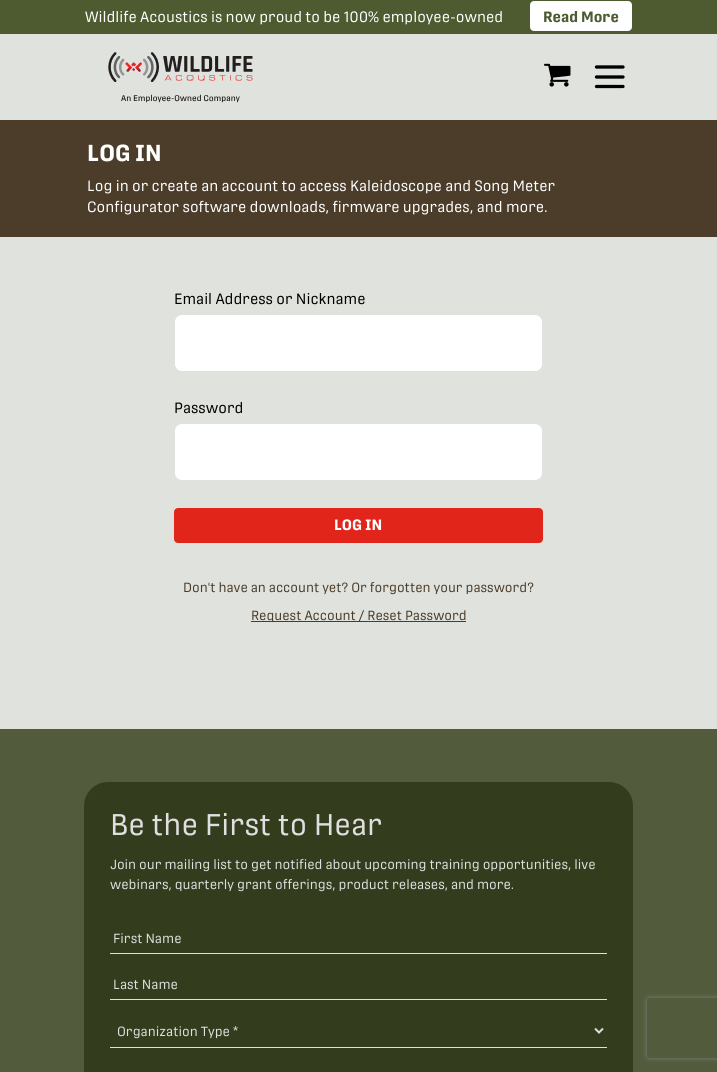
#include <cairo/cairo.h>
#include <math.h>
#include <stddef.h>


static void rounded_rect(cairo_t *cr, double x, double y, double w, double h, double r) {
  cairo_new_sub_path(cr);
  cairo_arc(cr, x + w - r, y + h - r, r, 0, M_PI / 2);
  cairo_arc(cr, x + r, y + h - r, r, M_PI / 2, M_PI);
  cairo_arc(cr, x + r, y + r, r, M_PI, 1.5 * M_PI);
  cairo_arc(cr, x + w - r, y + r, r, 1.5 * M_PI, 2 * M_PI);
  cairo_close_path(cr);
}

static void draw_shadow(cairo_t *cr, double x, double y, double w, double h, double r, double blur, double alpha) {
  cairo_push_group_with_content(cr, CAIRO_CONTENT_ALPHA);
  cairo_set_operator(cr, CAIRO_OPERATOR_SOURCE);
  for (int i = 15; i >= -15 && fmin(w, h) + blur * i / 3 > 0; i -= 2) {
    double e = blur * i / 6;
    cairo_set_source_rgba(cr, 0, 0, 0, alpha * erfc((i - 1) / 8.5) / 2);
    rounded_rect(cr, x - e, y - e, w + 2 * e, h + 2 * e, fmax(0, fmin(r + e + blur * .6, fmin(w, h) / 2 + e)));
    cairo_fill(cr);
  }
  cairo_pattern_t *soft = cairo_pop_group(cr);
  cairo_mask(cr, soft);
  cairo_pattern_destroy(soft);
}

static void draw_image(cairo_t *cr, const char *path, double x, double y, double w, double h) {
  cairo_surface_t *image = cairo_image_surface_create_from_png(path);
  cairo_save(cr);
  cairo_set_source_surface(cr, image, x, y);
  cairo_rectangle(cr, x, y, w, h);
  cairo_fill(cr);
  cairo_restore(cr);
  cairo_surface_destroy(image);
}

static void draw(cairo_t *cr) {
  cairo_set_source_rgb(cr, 224 / 255.0, 226 / 255.0, 221 / 255.0);
  cairo_paint(cr);
  cairo_set_source_rgb(cr, 78 / 255.0, 91 / 255.0, 49 / 255.0);
  cairo_rectangle(cr, 0, 0, 717, 34);
  cairo_fill(cr);
  cairo_set_source_rgb(cr, 1, 1, 1);
  rounded_rect(cr, 530, 1, 102, 30, 4);
  cairo_fill(cr);
  draw_image(cr, "images/1.png", 108, 52, 145, 51);
  draw_image(cr, "images/2.png", 544, 63, 27, 24);
  cairo_new_path(cr);
  cairo_move_to(cr, 596.5, 67);
  cairo_line_to(cr, 623, 67);
  cairo_move_to(cr, 596.5, 77);
  cairo_line_to(cr, 623, 77);
  cairo_move_to(cr, 596.5, 86.5);
  cairo_line_to(cr, 623, 86.5);
  cairo_set_source_rgb(cr, 0, 0, 0);
  cairo_set_line_width(cr, 3.3);
  cairo_set_line_cap(cr, CAIRO_LINE_CAP_ROUND);
  cairo_set_line_join(cr, CAIRO_LINE_JOIN_ROUND);
  cairo_stroke(cr);
  cairo_set_source_rgb(cr, 75 / 255.0, 61 / 255.0, 42 / 255.0);
  cairo_rectangle(cr, 0, 120, 717, 117);
  cairo_fill(cr);
  cairo_set_source_rgb(cr, 1, 1, 1);
  rounded_rect(cr, 174.5, 314.5, 368, 57, 7.5);
  cairo_fill_preserve(cr);
  cairo_set_source_rgb(cr, 224 / 255.0, 226 / 255.0, 221 / 255.0);
  cairo_set_line_width(cr, 1);
  cairo_set_line_cap(cr, CAIRO_LINE_CAP_BUTT);
  cairo_set_line_join(cr, CAIRO_LINE_JOIN_MITER);
  cairo_stroke(cr);
  cairo_set_source_rgb(cr, 1, 1, 1);
  rounded_rect(cr, 174.5, 423.5, 368, 57, 7.5);
  cairo_fill_preserve(cr);
  cairo_set_source_rgb(cr, 224 / 255.0, 226 / 255.0, 221 / 255.0);
  cairo_stroke(cr);
  cairo_set_source_rgb(cr, 225 / 255.0, 37 / 255.0, 27 / 255.0);
  rounded_rect(cr, 175.5, 509.5, 366, 32, 2.5);
  cairo_fill_preserve(cr);
  cairo_set_line_width(cr, 3);
  cairo_stroke(cr);
  cairo_set_source_rgb(cr, 75 / 255.0, 61 / 255.0, 42 / 255.0);
  cairo_rectangle(cr, 251, 621, 215, 1);
  cairo_fill(cr);
  cairo_set_source_rgb(cr, 82 / 255.0, 91 / 255.0, 59 / 255.0);
  cairo_rectangle(cr, 0, 729, 717, 343);
  cairo_fill(cr);
  cairo_set_source_rgb(cr, 51 / 255.0, 61 / 255.0, 29 / 255.0);
  rounded_rect(cr, 84, 782, 549, 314, 24);
  cairo_fill(cr);
  cairo_set_source_rgb(cr, 223 / 255.0, 223 / 255.0, 223 / 255.0);
  cairo_rectangle(cr, 110, 953, 497, 1);
  cairo_fill(cr);
  cairo_rectangle(cr, 110, 999, 497, 1);
  cairo_fill(cr);
  cairo_rectangle(cr, 110, 1047, 497, 1);
  cairo_fill(cr);
  cairo_new_path(cr);
  cairo_move_to(cr, 595, 1028.5);
  cairo_line_to(cr, 599, 1032.5);
  cairo_line_to(cr, 603, 1028.5);
  cairo_set_line_width(cr, 2);
  cairo_stroke(cr);
  cairo_save(cr);
  cairo_set_fill_rule(cr, CAIRO_FILL_RULE_EVEN_ODD);
  cairo_new_path(cr);
  cairo_move_to(cr, 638, 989);
  cairo_line_to(cr, 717, 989);
  cairo_line_to(cr, 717, 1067);
  cairo_line_to(cr, 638, 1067);
  cairo_close_path(cr);
  cairo_move_to(cr, 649, 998);
  cairo_line_to(cr, 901, 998);
  cairo_curve_to(cr, 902, 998, 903, 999, 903, 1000);
  cairo_line_to(cr, 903, 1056);
  cairo_curve_to(cr, 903, 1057, 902, 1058, 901, 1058);
  cairo_line_to(cr, 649, 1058);
  cairo_curve_to(cr, 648, 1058, 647, 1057, 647, 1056);
  cairo_line_to(cr, 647, 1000);
  cairo_curve_to(cr, 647, 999, 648, 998, 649, 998);
  cairo_close_path(cr);
  cairo_clip(cr);
  cairo_set_source_rgb(cr, 128 / 255.0, 128 / 255.0, 128 / 255.0);
  draw_shadow(cr, 647, 998, 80, 60, 2, 2.5, 1);
  cairo_restore(cr);
  cairo_select_font_face(cr, "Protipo", CAIRO_FONT_SLANT_NORMAL, CAIRO_FONT_WEIGHT_NORMAL);
  cairo_set_font_size(cr, 14.85);
  cairo_set_source_rgb(cr, 1, 1, 1);
  cairo_move_to(cr, 85, 22);
  cairo_show_text(cr, "Wildlife Acoustics is now proud to be 100% employee-owned");
  cairo_select_font_face(cr, "Protipo", CAIRO_FONT_SLANT_NORMAL, CAIRO_FONT_WEIGHT_BOLD);
  cairo_set_source_rgb(cr, 78 / 255.0, 91 / 255.0, 49 / 255.0);
  cairo_move_to(cr, 543, 22);
  cairo_show_text(cr, "Read More");
  cairo_set_font_size(cr, 23);
  cairo_set_source_rgb(cr, 1, 1, 1);
  cairo_move_to(cr, 87, 161);
  cairo_show_text(cr, "LOG IN");
  cairo_select_font_face(cr, "Protipo", CAIRO_FONT_SLANT_NORMAL, CAIRO_FONT_WEIGHT_NORMAL);
  cairo_set_font_size(cr, 14.85);
  cairo_move_to(cr, 87, 191);
  cairo_show_text(cr, "Log in or create an account to access Kaleidoscope and Song Meter");
  cairo_move_to(cr, 87, 212);
  cairo_show_text(cr, "Configurator software downloads, firmware upgrades, and more.");
  cairo_set_source_rgb(cr, 0, 0, 0);
  cairo_move_to(cr, 174, 304);
  cairo_show_text(cr, "Email Address or Nickname");
  cairo_move_to(cr, 174, 413);
  cairo_show_text(cr, "Password");
  cairo_select_font_face(cr, "Protipo", CAIRO_FONT_SLANT_NORMAL, CAIRO_FONT_WEIGHT_BOLD);
  cairo_set_source_rgb(cr, 1, 1, 1);
  cairo_move_to(cr, 334, 530);
  cairo_show_text(cr, "LOG IN");
  cairo_select_font_face(cr, "Protipo", CAIRO_FONT_SLANT_NORMAL, CAIRO_FONT_WEIGHT_NORMAL);
  cairo_set_font_size(cr, 13.2);
  cairo_set_source_rgb(cr, 75 / 255.0, 61 / 255.0, 42 / 255.0);
  cairo_move_to(cr, 183, 592);
  cairo_show_text(cr, "Don't have an account yet? Or forgotten your password?");
  cairo_move_to(cr, 251, 620);
  cairo_show_text(cr, "Request Account / Reset Password");
  cairo_set_font_size(cr, 29.75);
  cairo_set_source_rgb(cr, 223 / 255.0, 223 / 255.0, 223 / 255.0);
  cairo_move_to(cr, 110, 835);
  cairo_show_text(cr, "Be the First to Hear");
  cairo_set_font_size(cr, 13.2);
  cairo_move_to(cr, 110, 869);
  cairo_show_text(cr, "Join our mailing list to get notified about upcoming training opportunities, live");
  cairo_move_to(cr, 110, 889);
  cairo_show_text(cr, "webinars, quarterly grant offerings, product releases, and more.");
  cairo_move_to(cr, 113, 943);
  cairo_show_text(cr, "First Name");
  cairo_move_to(cr, 113, 989);
  cairo_show_text(cr, "Last Name");
  cairo_move_to(cr, 117, 1036);
  cairo_show_text(cr, "Organization Type *");
}

int main(void) {
  cairo_surface_t *surface = cairo_image_surface_create(CAIRO_FORMAT_RGB24, 717, 1072);
  cairo_t *cr = cairo_create(surface);
  cairo_font_options_t *options = cairo_font_options_create();
  cairo_font_options_set_hint_metrics(options, CAIRO_HINT_METRICS_OFF);
  cairo_font_options_set_hint_style(options, CAIRO_HINT_STYLE_NONE);
  cairo_set_font_options(cr, options);
  cairo_set_miter_limit(cr, 4);
  draw(cr);
  cairo_surface_write_to_png(surface, "out.png");
  cairo_font_options_destroy(options);
  cairo_destroy(cr);
  cairo_surface_destroy(surface);
  return 0;
}
